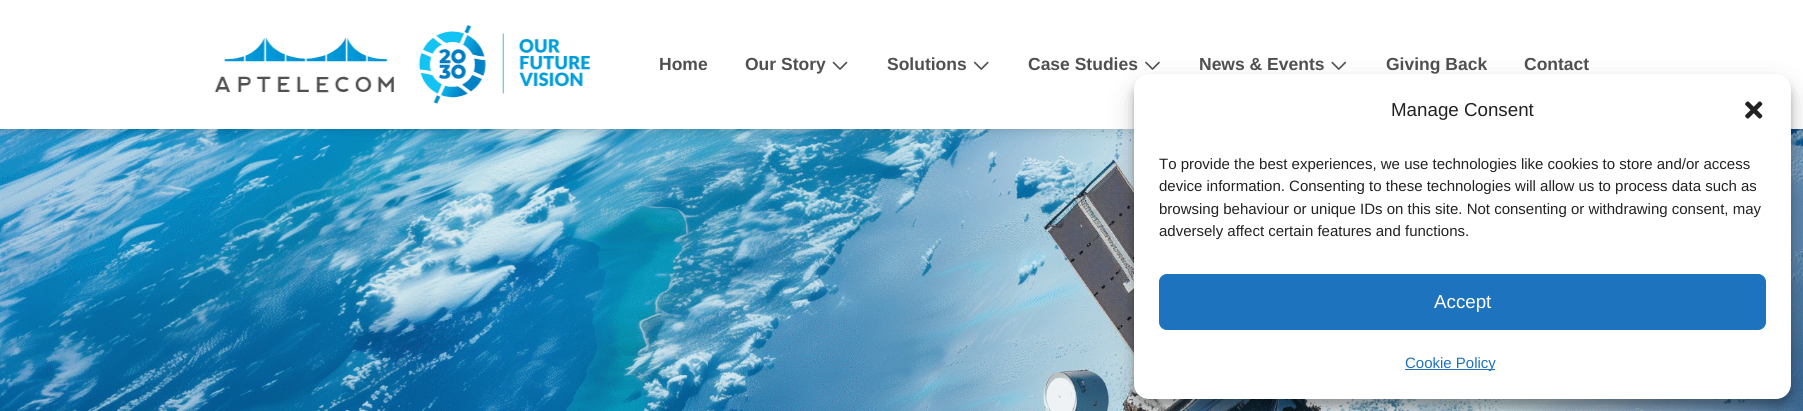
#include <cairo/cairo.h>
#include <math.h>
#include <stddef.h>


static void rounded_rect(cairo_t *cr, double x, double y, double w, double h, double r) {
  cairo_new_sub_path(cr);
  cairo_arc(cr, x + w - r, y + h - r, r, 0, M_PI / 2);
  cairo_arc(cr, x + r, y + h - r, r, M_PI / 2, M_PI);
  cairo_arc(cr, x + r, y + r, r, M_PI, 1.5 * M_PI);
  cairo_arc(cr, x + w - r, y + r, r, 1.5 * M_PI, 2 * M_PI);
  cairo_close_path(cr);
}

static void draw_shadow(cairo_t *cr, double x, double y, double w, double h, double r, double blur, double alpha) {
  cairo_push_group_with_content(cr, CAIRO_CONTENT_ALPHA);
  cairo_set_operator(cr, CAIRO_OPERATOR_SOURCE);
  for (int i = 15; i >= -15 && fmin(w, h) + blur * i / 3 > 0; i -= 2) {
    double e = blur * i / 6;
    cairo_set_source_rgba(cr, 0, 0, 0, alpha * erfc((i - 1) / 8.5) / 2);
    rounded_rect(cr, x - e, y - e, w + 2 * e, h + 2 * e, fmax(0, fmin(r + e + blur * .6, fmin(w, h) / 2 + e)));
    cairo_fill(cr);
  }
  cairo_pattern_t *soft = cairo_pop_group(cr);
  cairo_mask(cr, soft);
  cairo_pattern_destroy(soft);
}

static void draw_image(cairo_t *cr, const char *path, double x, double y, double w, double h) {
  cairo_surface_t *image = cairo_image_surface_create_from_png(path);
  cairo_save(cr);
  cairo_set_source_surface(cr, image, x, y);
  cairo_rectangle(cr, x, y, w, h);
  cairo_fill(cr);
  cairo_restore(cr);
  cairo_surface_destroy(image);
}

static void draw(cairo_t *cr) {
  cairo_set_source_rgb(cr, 1, 1, 1);
  cairo_paint(cr);
  draw_image(cr, "images/7.png", 0, 129, 1803, 282);
  cairo_set_source_rgb(cr, 0, 0, 0);
  draw_shadow(cr, 0, 0, 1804, 129, 0, 6, 0.2);
  cairo_set_source_rgb(cr, 1, 1, 1);
  cairo_rectangle(cr, 0, 0, 1803, 129);
  cairo_fill(cr);
  draw_image(cr, "images/1.png", 214, 25, 376, 79);
  draw_image(cr, "images/2.png", 832, 61, 16, 9);
  draw_image(cr, "images/3.png", 973, 61, 16, 9);
  draw_image(cr, "images/4.png", 1145, 61, 15, 9);
  draw_image(cr, "images/5.png", 1331, 61, 16, 9);
  cairo_set_source_rgb(cr, 0, 0, 0);
  draw_shadow(cr, 1134, 81, 657, 325, 15, 4, 0.23);
  draw_shadow(cr, 1134, 86, 657, 325, 15, 12.5, 0.19);
  cairo_set_source_rgb(cr, 1, 1, 1);
  rounded_rect(cr, 1134, 74, 657, 325, 15);
  cairo_fill(cr);
  draw_image(cr, "images/6.png", 1745, 101, 18, 18);
  cairo_set_source_rgb(cr, 30 / 255.0, 115 / 255.0, 190 / 255.0);
  rounded_rect(cr, 1159.5, 274.5, 606, 55, 7.5);
  cairo_fill_preserve(cr);
  cairo_set_line_width(cr, 1);
  cairo_stroke(cr);
  cairo_rectangle(cr, 1405, 369, 90, 1);
  cairo_fill(cr);
  cairo_select_font_face(cr, "Liberation Sans", CAIRO_FONT_SLANT_NORMAL, CAIRO_FONT_WEIGHT_BOLD);
  cairo_set_font_size(cr, 17.5);
  cairo_set_source_rgb(cr, 80 / 255.0, 79 / 255.0, 81 / 255.0);
  cairo_move_to(cr, 659, 70);
  cairo_show_text(cr, "Home");
  cairo_move_to(cr, 745, 70);
  cairo_show_text(cr, "Our Story");
  cairo_move_to(cr, 887, 70);
  cairo_show_text(cr, "Solutions");
  cairo_move_to(cr, 1028, 70);
  cairo_show_text(cr, "Case Studies");
  cairo_move_to(cr, 1199, 70);
  cairo_show_text(cr, "News & Events");
  cairo_move_to(cr, 1386, 70);
  cairo_show_text(cr, "Giving Back");
  cairo_move_to(cr, 1524, 70);
  cairo_show_text(cr, "Contact");
  cairo_select_font_face(cr, "Liberation Sans", CAIRO_FONT_SLANT_NORMAL, CAIRO_FONT_WEIGHT_NORMAL);
  cairo_set_font_size(cr, 18.75);
  cairo_set_source_rgb(cr, 34 / 255.0, 34 / 255.0, 34 / 255.0);
  cairo_move_to(cr, 1391, 116);
  cairo_show_text(cr, "Manage Consent");
  cairo_set_font_size(cr, 15);
  cairo_move_to(cr, 1159, 169);
  cairo_show_text(cr, "To provide the best experiences, we use technologies like cookies to store and/or access");
  cairo_move_to(cr, 1159, 191);
  cairo_show_text(cr, "device information. Consenting to these technologies will allow us to process data such as");
  cairo_move_to(cr, 1159, 214);
  cairo_show_text(cr, "browsing behaviour or unique IDs on this site. Not consenting or withdrawing consent, may");
  cairo_move_to(cr, 1159, 236);
  cairo_show_text(cr, "adversely affect certain features and functions.");
  cairo_set_font_size(cr, 18.75);
  cairo_set_source_rgb(cr, 1, 1, 1);
  cairo_move_to(cr, 1434, 308);
  cairo_show_text(cr, "Accept");
  cairo_set_font_size(cr, 15);
  cairo_set_source_rgb(cr, 30 / 255.0, 115 / 255.0, 190 / 255.0);
  cairo_move_to(cr, 1405, 368);
  cairo_show_text(cr, "Cookie Policy");
}

int main(void) {
  cairo_surface_t *surface = cairo_image_surface_create(CAIRO_FORMAT_RGB24, 1803, 411);
  cairo_t *cr = cairo_create(surface);
  cairo_font_options_t *options = cairo_font_options_create();
  cairo_font_options_set_hint_metrics(options, CAIRO_HINT_METRICS_OFF);
  cairo_font_options_set_hint_style(options, CAIRO_HINT_STYLE_NONE);
  cairo_set_font_options(cr, options);
  cairo_set_miter_limit(cr, 4);
  draw(cr);
  cairo_surface_write_to_png(surface, "out.png");
  cairo_font_options_destroy(options);
  cairo_destroy(cr);
  cairo_surface_destroy(surface);
  return 0;
}
